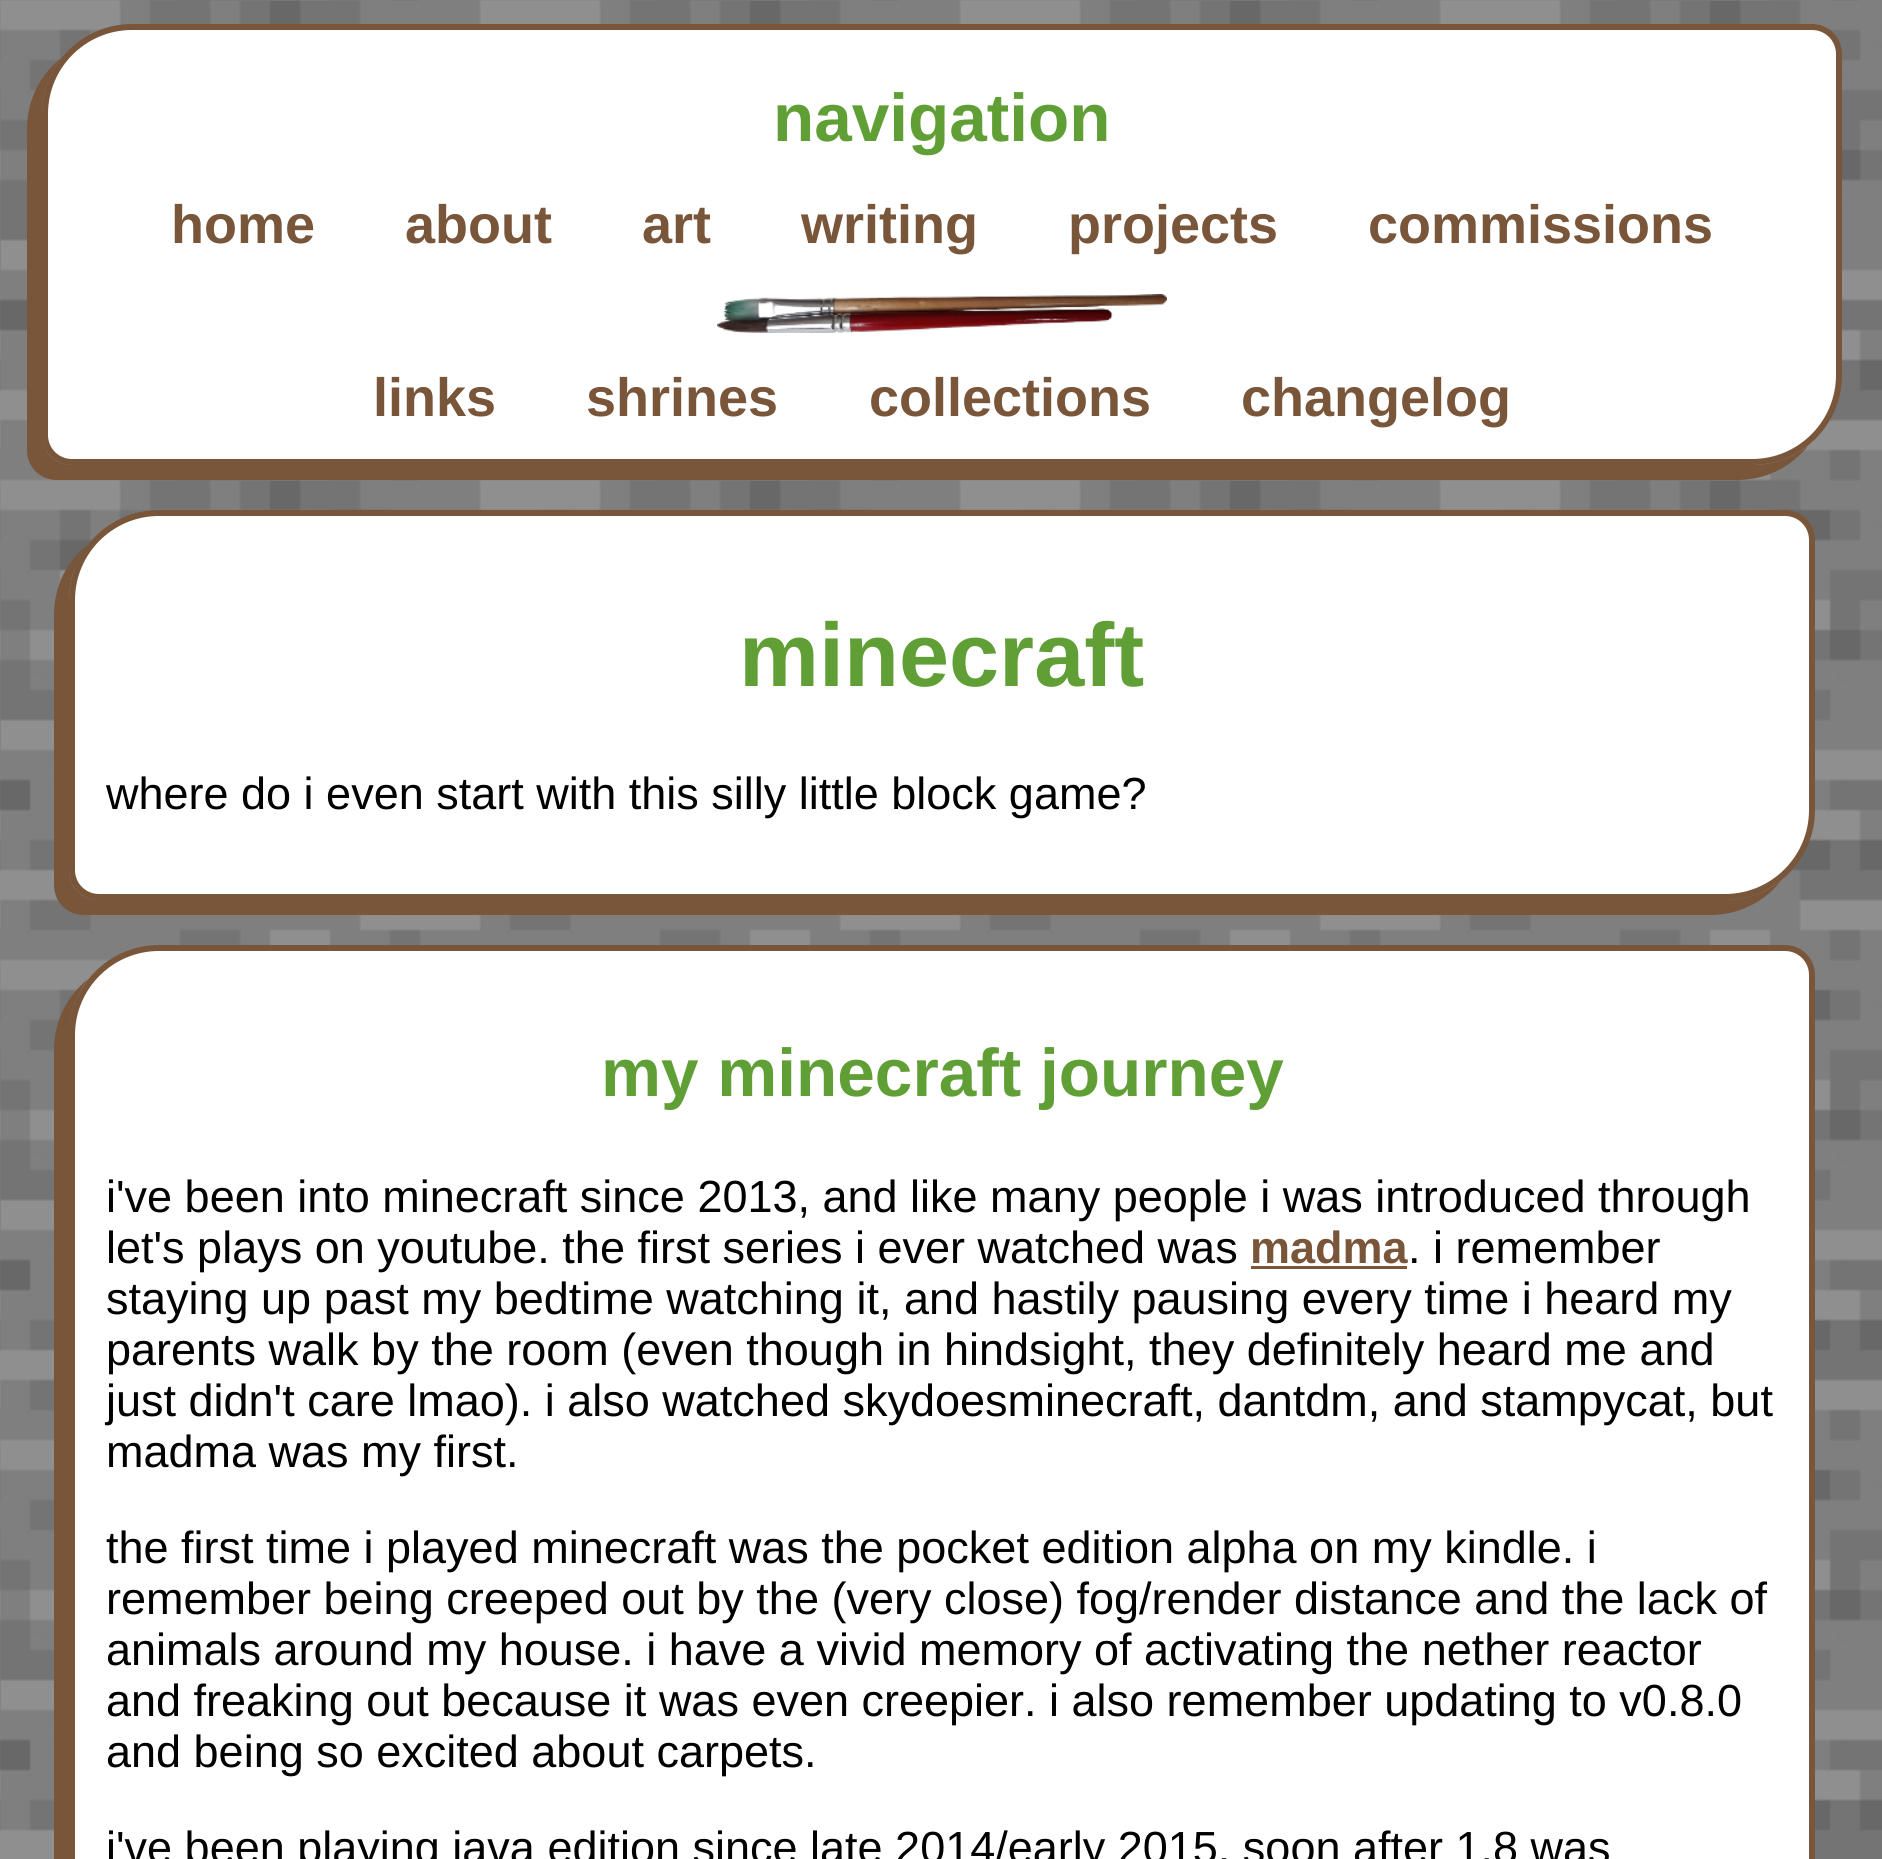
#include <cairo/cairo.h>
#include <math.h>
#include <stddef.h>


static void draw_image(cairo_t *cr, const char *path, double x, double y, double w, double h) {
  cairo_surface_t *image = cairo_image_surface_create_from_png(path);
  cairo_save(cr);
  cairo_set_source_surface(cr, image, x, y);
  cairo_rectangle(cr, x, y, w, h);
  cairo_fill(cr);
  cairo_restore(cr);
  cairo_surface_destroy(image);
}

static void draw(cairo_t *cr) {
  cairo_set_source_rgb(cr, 1, 1, 1);
  cairo_paint(cr);
  draw_image(cr, "images/1.png", 0, 0, 1882, 1859);
  cairo_set_source_rgb(cr, 121 / 255.0, 85 / 255.0, 58 / 255.0);
  cairo_new_path(cr);
  cairo_move_to(cr, 61, 58);
  cairo_curve_to(cr, 40, 75, 27, 100, 27, 129);
  cairo_line_to(cr, 27, 450);
  cairo_curve_to(cr, 27, 467, 40, 480, 57, 480);
  cairo_line_to(cr, 1737, 480);
  cairo_curve_to(cr, 1766, 480, 1791, 467, 1808, 446);
  cairo_curve_to(cr, 1792, 458, 1773, 465, 1752, 465);
  cairo_line_to(cr, 72, 465);
  cairo_curve_to(cr, 55, 465, 42, 452, 42, 435);
  cairo_line_to(cr, 42, 114);
  cairo_curve_to(cr, 42, 93, 49, 74, 61, 58);
  cairo_close_path(cr);
  cairo_fill(cr);
  cairo_set_source_rgb(cr, 1, 1, 1);
  cairo_new_path(cr);
  cairo_move_to(cr, 132, 27);
  cairo_line_to(cr, 1812, 27);
  cairo_curve_to(cr, 1827, 27, 1839, 39, 1839, 54);
  cairo_line_to(cr, 1839, 375);
  cairo_curve_to(cr, 1839, 423, 1800, 462, 1752, 462);
  cairo_line_to(cr, 72, 462);
  cairo_curve_to(cr, 57, 462, 45, 450, 45, 435);
  cairo_line_to(cr, 45, 114);
  cairo_curve_to(cr, 45, 66, 84, 27, 132, 27);
  cairo_close_path(cr);
  cairo_fill_preserve(cr);
  cairo_set_source_rgb(cr, 121 / 255.0, 85 / 255.0, 58 / 255.0);
  cairo_set_line_width(cr, 6);
  cairo_stroke(cr);
  draw_image(cr, "images/2.png", 717, 294, 450, 39);
  cairo_new_path(cr);
  cairo_move_to(cr, 88, 544);
  cairo_curve_to(cr, 67, 561, 54, 586, 54, 615);
  cairo_line_to(cr, 54, 885);
  cairo_curve_to(cr, 54, 902, 67, 915, 84, 915);
  cairo_line_to(cr, 1710, 915);
  cairo_curve_to(cr, 1739, 915, 1764, 902, 1781, 881);
  cairo_curve_to(cr, 1765, 893, 1746, 900, 1725, 900);
  cairo_line_to(cr, 99, 900);
  cairo_curve_to(cr, 82, 900, 69, 887, 69, 870);
  cairo_line_to(cr, 69, 600);
  cairo_curve_to(cr, 69, 579, 76, 560, 88, 544);
  cairo_close_path(cr);
  cairo_fill(cr);
  cairo_set_source_rgb(cr, 1, 1, 1);
  cairo_new_path(cr);
  cairo_move_to(cr, 159, 513);
  cairo_line_to(cr, 1785, 513);
  cairo_curve_to(cr, 1800, 513, 1812, 525, 1812, 540);
  cairo_line_to(cr, 1812, 810);
  cairo_curve_to(cr, 1812, 858, 1773, 897, 1725, 897);
  cairo_line_to(cr, 99, 897);
  cairo_curve_to(cr, 84, 897, 72, 885, 72, 870);
  cairo_line_to(cr, 72, 600);
  cairo_curve_to(cr, 72, 552, 111, 513, 159, 513);
  cairo_close_path(cr);
  cairo_fill_preserve(cr);
  cairo_set_source_rgb(cr, 121 / 255.0, 85 / 255.0, 58 / 255.0);
  cairo_stroke(cr);
  cairo_new_path(cr);
  cairo_move_to(cr, 88, 979);
  cairo_curve_to(cr, 67, 996, 54, 1021, 54, 1050);
  cairo_line_to(cr, 54, 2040);
  cairo_curve_to(cr, 54, 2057, 67, 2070, 84, 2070);
  cairo_line_to(cr, 1710, 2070);
  cairo_curve_to(cr, 1739, 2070, 1764, 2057, 1781, 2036);
  cairo_curve_to(cr, 1765, 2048, 1746, 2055, 1725, 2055);
  cairo_line_to(cr, 99, 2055);
  cairo_curve_to(cr, 82, 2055, 69, 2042, 69, 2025);
  cairo_line_to(cr, 69, 1035);
  cairo_curve_to(cr, 69, 1014, 76, 995, 88, 979);
  cairo_close_path(cr);
  cairo_fill(cr);
  cairo_set_source_rgb(cr, 1, 1, 1);
  cairo_new_path(cr);
  cairo_move_to(cr, 159, 948);
  cairo_line_to(cr, 1785, 948);
  cairo_curve_to(cr, 1800, 948, 1812, 960, 1812, 975);
  cairo_line_to(cr, 1812, 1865);
  cairo_curve_to(cr, 1812, 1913, 1773, 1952, 1725, 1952);
  cairo_line_to(cr, 99, 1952);
  cairo_curve_to(cr, 84, 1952, 72, 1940, 72, 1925);
  cairo_line_to(cr, 72, 1035);
  cairo_curve_to(cr, 72, 987, 111, 948, 159, 948);
  cairo_close_path(cr);
  cairo_fill_preserve(cr);
  cairo_set_source_rgb(cr, 121 / 255.0, 85 / 255.0, 58 / 255.0);
  cairo_stroke(cr);
  cairo_rectangle(cr, 1251, 1266, 156, 3);
  cairo_fill(cr);
  cairo_select_font_face(cr, "Liberation Sans", CAIRO_FONT_SLANT_NORMAL, CAIRO_FONT_WEIGHT_BOLD);
  cairo_set_font_size(cr, 67.5);
  cairo_set_source_rgb(cr, 95 / 255.0, 159 / 255.0, 53 / 255.0);
  cairo_move_to(cr, 773, 141);
  cairo_show_text(cr, "navigation");
  cairo_set_font_size(cr, 54);
  cairo_set_source_rgb(cr, 121 / 255.0, 85 / 255.0, 58 / 255.0);
  cairo_move_to(cr, 171, 243);
  cairo_show_text(cr, "home");
  cairo_move_to(cr, 405, 243);
  cairo_show_text(cr, "about");
  cairo_move_to(cr, 642, 243);
  cairo_show_text(cr, "art");
  cairo_move_to(cr, 801, 243);
  cairo_show_text(cr, "writing");
  cairo_move_to(cr, 1068, 243);
  cairo_show_text(cr, "projects");
  cairo_move_to(cr, 1368, 243);
  cairo_show_text(cr, "commissions");
  cairo_move_to(cr, 373, 416);
  cairo_show_text(cr, "links");
  cairo_move_to(cr, 586, 416);
  cairo_show_text(cr, "shrines");
  cairo_move_to(cr, 869, 416);
  cairo_show_text(cr, "collections");
  cairo_move_to(cr, 1241, 416);
  cairo_show_text(cr, "changelog");
  cairo_set_font_size(cr, 90);
  cairo_set_source_rgb(cr, 95 / 255.0, 159 / 255.0, 53 / 255.0);
  cairo_move_to(cr, 739, 686);
  cairo_show_text(cr, "minecraft");
  cairo_select_font_face(cr, "Liberation Sans", CAIRO_FONT_SLANT_NORMAL, CAIRO_FONT_WEIGHT_NORMAL);
  cairo_set_font_size(cr, 45);
  cairo_set_source_rgb(cr, 0, 0, 0);
  cairo_move_to(cr, 106, 809);
  cairo_show_text(cr, "where do i even start with this silly little block game?");
  cairo_select_font_face(cr, "Liberation Sans", CAIRO_FONT_SLANT_NORMAL, CAIRO_FONT_WEIGHT_BOLD);
  cairo_set_font_size(cr, 67.5);
  cairo_set_source_rgb(cr, 95 / 255.0, 159 / 255.0, 53 / 255.0);
  cairo_move_to(cr, 601, 1096);
  cairo_show_text(cr, "my minecraft journey");
  cairo_select_font_face(cr, "Liberation Sans", CAIRO_FONT_SLANT_NORMAL, CAIRO_FONT_WEIGHT_NORMAL);
  cairo_set_font_size(cr, 45);
  cairo_set_source_rgb(cr, 0, 0, 0);
  cairo_move_to(cr, 106, 1212);
  cairo_show_text(cr, "i've been into minecraft since 2013, and like many people i was introduced through");
  cairo_move_to(cr, 106, 1263);
  cairo_show_text(cr, "let's plays on youtube. the first series i ever watched was");
  cairo_select_font_face(cr, "Liberation Sans", CAIRO_FONT_SLANT_NORMAL, CAIRO_FONT_WEIGHT_BOLD);
  cairo_set_source_rgb(cr, 121 / 255.0, 85 / 255.0, 58 / 255.0);
  cairo_move_to(cr, 1250, 1263);
  cairo_show_text(cr, "madma");
  cairo_select_font_face(cr, "Liberation Sans", CAIRO_FONT_SLANT_NORMAL, CAIRO_FONT_WEIGHT_NORMAL);
  cairo_set_source_rgb(cr, 0, 0, 0);
  cairo_move_to(cr, 1408, 1263);
  cairo_show_text(cr, ". i remember");
  cairo_move_to(cr, 106, 1314);
  cairo_show_text(cr, "staying up past my bedtime watching it, and hastily pausing every time i heard my");
  cairo_move_to(cr, 106, 1365);
  cairo_show_text(cr, "parents walk by the room (even though in hindsight, they definitely heard me and");
  cairo_move_to(cr, 106, 1416);
  cairo_show_text(cr, "just didn't care lmao). i also watched skydoesminecraft, dantdm, and stampycat, but");
  cairo_move_to(cr, 106, 1467);
  cairo_show_text(cr, "madma was my first.");
  cairo_move_to(cr, 106, 1563);
  cairo_show_text(cr, "the first time i played minecraft was the pocket edition alpha on my kindle. i");
  cairo_move_to(cr, 106, 1614);
  cairo_show_text(cr, "remember being creeped out by the (very close) fog/render distance and the lack of");
  cairo_move_to(cr, 106, 1665);
  cairo_show_text(cr, "animals around my house. i have a vivid memory of activating the nether reactor");
  cairo_move_to(cr, 106, 1716);
  cairo_show_text(cr, "and freaking out because it was even creepier. i also remember updating to v0.8.0");
  cairo_move_to(cr, 106, 1767);
  cairo_show_text(cr, "and being so excited about carpets.");
  cairo_move_to(cr, 106, 1863);
  cairo_show_text(cr, "i've been playing java edition since late 2014/early 2015, soon after 1.8 was");
}

int main(void) {
  cairo_surface_t *surface = cairo_image_surface_create(CAIRO_FORMAT_RGB24, 1882, 1859);
  cairo_t *cr = cairo_create(surface);
  cairo_font_options_t *options = cairo_font_options_create();
  cairo_font_options_set_hint_metrics(options, CAIRO_HINT_METRICS_OFF);
  cairo_font_options_set_hint_style(options, CAIRO_HINT_STYLE_NONE);
  cairo_set_font_options(cr, options);
  cairo_set_miter_limit(cr, 4);
  draw(cr);
  cairo_surface_write_to_png(surface, "out.png");
  cairo_font_options_destroy(options);
  cairo_destroy(cr);
  cairo_surface_destroy(surface);
  return 0;
}
